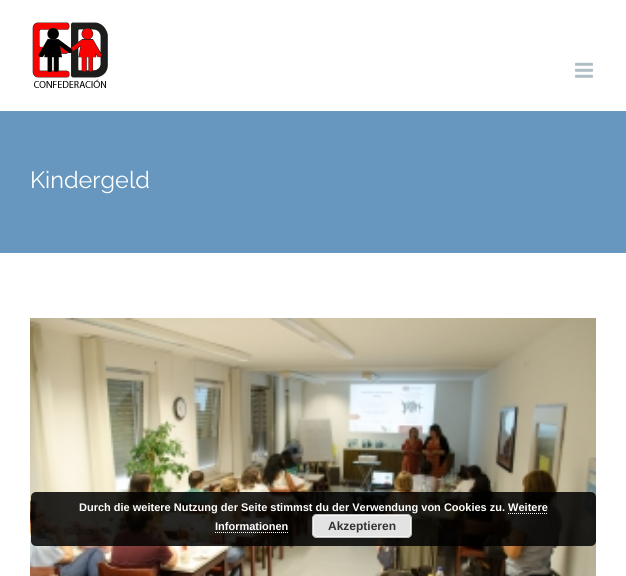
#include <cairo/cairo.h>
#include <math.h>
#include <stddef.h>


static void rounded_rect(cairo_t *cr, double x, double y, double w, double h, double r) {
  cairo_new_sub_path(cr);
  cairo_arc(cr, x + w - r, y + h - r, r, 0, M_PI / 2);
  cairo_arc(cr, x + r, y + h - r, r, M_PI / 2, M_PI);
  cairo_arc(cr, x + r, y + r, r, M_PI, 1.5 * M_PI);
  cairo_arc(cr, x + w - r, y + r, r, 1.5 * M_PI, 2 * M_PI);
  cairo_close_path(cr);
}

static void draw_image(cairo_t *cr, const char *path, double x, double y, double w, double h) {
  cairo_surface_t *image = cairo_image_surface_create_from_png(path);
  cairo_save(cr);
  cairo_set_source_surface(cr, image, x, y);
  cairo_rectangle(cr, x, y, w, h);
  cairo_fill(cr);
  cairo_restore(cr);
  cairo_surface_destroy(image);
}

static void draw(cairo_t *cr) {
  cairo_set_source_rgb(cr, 1, 1, 1);
  cairo_paint(cr);
  draw_image(cr, "images/1.png", 32, 22, 76, 66);
  draw_image(cr, "images/2.png", 575, 62, 18, 16);
  cairo_set_source_rgb(cr, 103 / 255.0, 150 / 255.0, 191 / 255.0);
  cairo_rectangle(cr, 0, 111, 626, 142);
  cairo_fill(cr);
  draw_image(cr, "images/3.png", 30, 318, 566, 258);
  cairo_set_source_rgba(cr, 0, 0, 0, 0.85);
  rounded_rect(cr, 31, 492, 565, 54, 5);
  cairo_fill(cr);
  cairo_new_path(cr);
  cairo_move_to(cr, 508, 513.5);
  cairo_line_to(cr, 548, 513.5);
  cairo_set_source_rgb(cr, 1, 1, 1);
  cairo_set_line_width(cr, 1);
  cairo_set_dash(cr, (double[]){1, 1}, 2, 0);
  cairo_stroke(cr);
  cairo_new_path(cr);
  cairo_move_to(cr, 215, 532.5);
  cairo_line_to(cr, 289, 532.5);
  cairo_stroke(cr);
  cairo_set_source_rgb(cr, 227 / 255.0, 227 / 255.0, 227 / 255.0);
  rounded_rect(cr, 312, 514, 100, 24, 5);
  cairo_fill(cr);
  rounded_rect(cr, 313.5, 515.5, 97, 21, 3.5);
  cairo_set_source_rgb(cr, 246 / 255.0, 246 / 255.0, 246 / 255.0);
  cairo_set_dash(cr, NULL, 0, 0);
  cairo_stroke(cr);
  rounded_rect(cr, 312.5, 514.5, 99, 23, 4.5);
  cairo_set_source_rgb(cr, 187 / 255.0, 187 / 255.0, 187 / 255.0);
  cairo_stroke(cr);
  cairo_select_font_face(cr, "Raleway Thin", CAIRO_FONT_SLANT_NORMAL, CAIRO_FONT_WEIGHT_NORMAL);
  cairo_set_font_size(cr, 23.5);
  cairo_set_source_rgb(cr, 1, 1, 1);
  cairo_move_to(cr, 30, 188);
  cairo_show_text(cr, "Kindergeld");
  cairo_select_font_face(cr, "Liberation Sans", CAIRO_FONT_SLANT_NORMAL, CAIRO_FONT_WEIGHT_BOLD);
  cairo_set_font_size(cr, 11);
  cairo_move_to(cr, 79, 511);
  cairo_show_text(cr, "Durch die weitere Nutzung der Seite stimmst du der Verwendung von Cookies zu. Weitere");
  cairo_move_to(cr, 215, 530);
  cairo_show_text(cr, "Informationen");
  cairo_set_font_size(cr, 12);
  cairo_set_source_rgb(cr, 51 / 255.0, 51 / 255.0, 51 / 255.0);
  cairo_move_to(cr, 328, 530);
  cairo_show_text(cr, "Akzeptieren");
}

int main(void) {
  cairo_surface_t *surface = cairo_image_surface_create(CAIRO_FORMAT_RGB24, 626, 576);
  cairo_t *cr = cairo_create(surface);
  cairo_font_options_t *options = cairo_font_options_create();
  cairo_font_options_set_hint_metrics(options, CAIRO_HINT_METRICS_OFF);
  cairo_font_options_set_hint_style(options, CAIRO_HINT_STYLE_NONE);
  cairo_set_font_options(cr, options);
  cairo_set_miter_limit(cr, 4);
  draw(cr);
  cairo_surface_write_to_png(surface, "out.png");
  cairo_font_options_destroy(options);
  cairo_destroy(cr);
  cairo_surface_destroy(surface);
  return 0;
}
